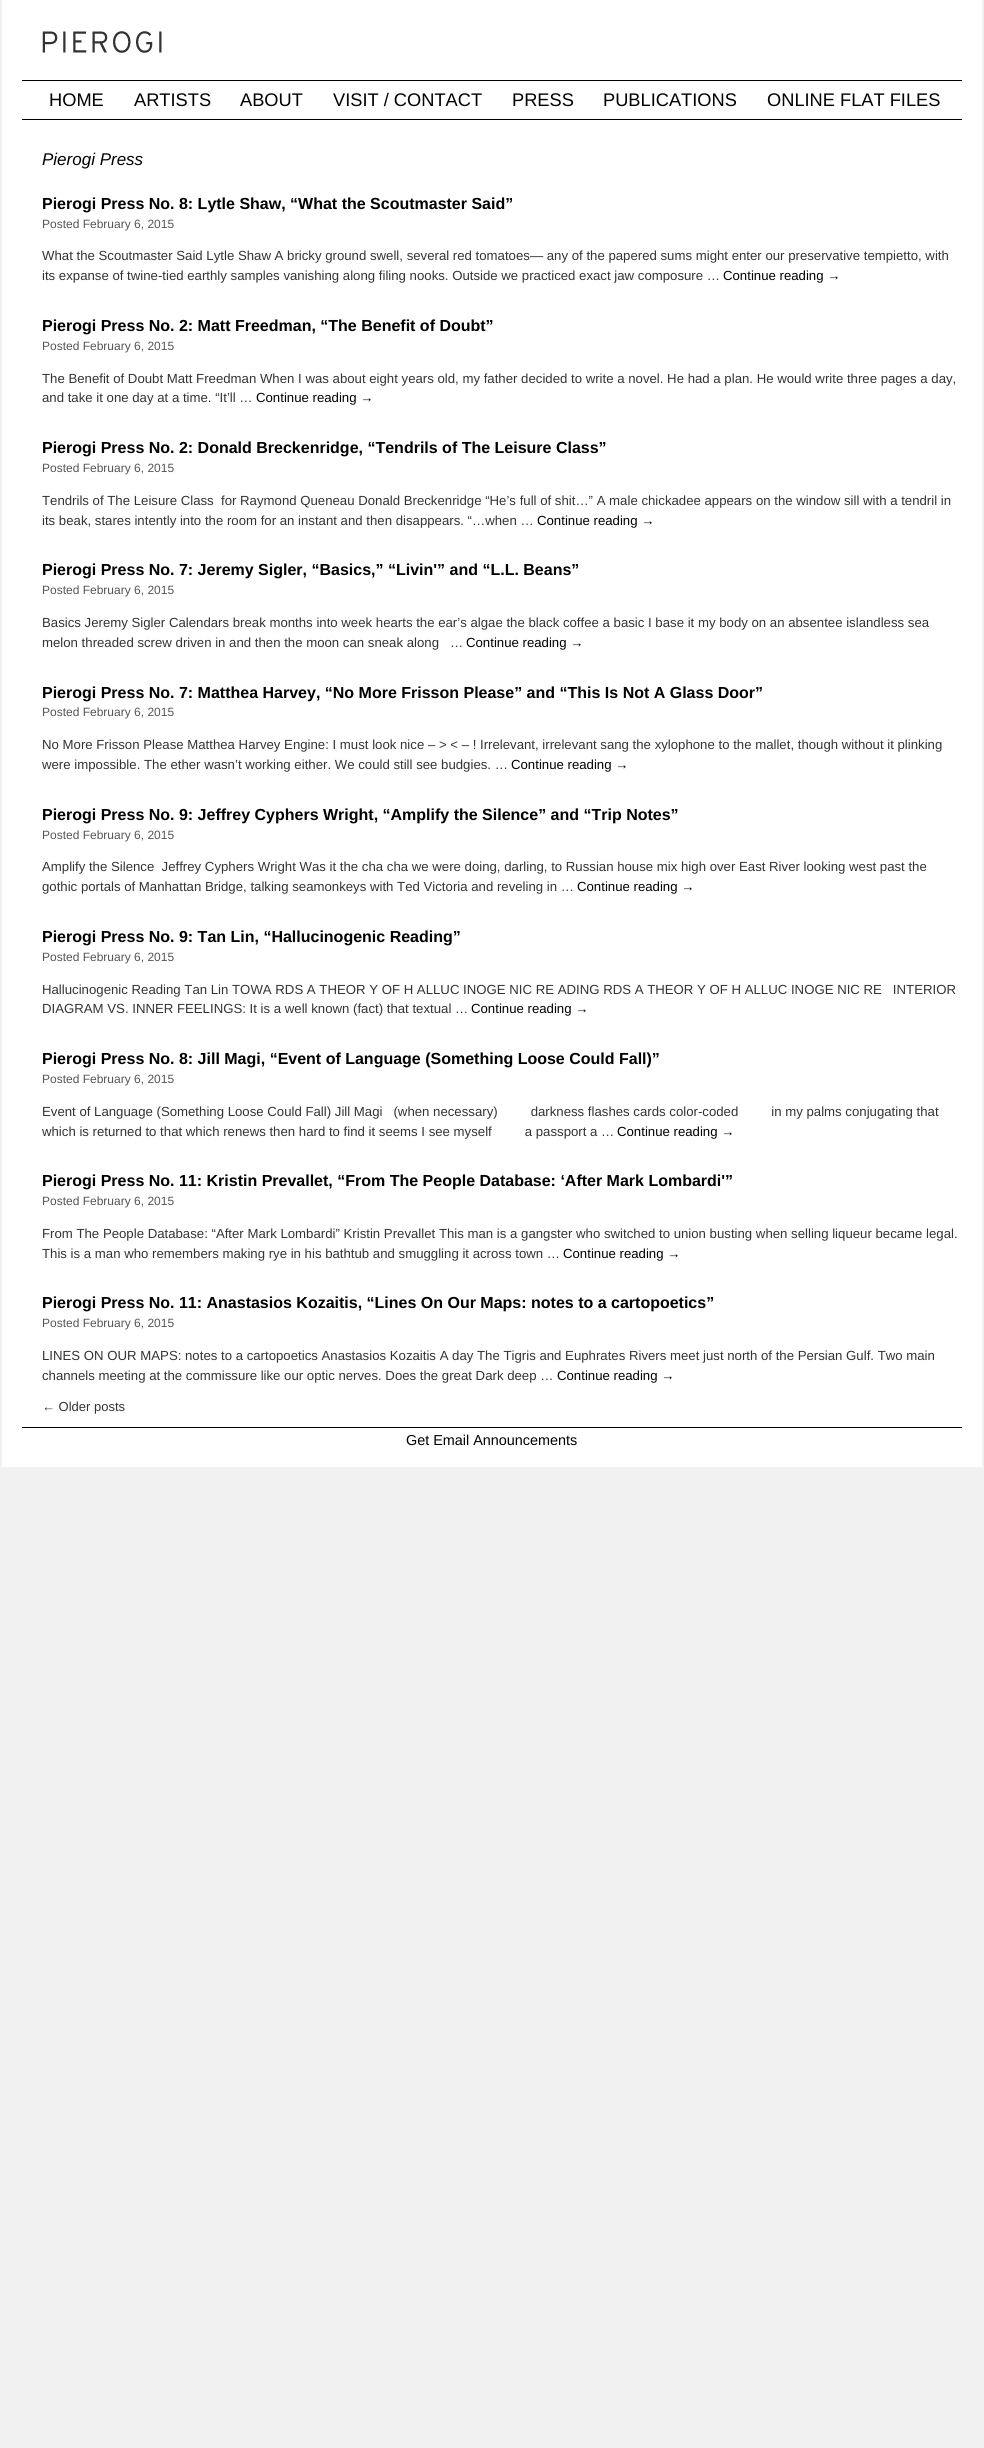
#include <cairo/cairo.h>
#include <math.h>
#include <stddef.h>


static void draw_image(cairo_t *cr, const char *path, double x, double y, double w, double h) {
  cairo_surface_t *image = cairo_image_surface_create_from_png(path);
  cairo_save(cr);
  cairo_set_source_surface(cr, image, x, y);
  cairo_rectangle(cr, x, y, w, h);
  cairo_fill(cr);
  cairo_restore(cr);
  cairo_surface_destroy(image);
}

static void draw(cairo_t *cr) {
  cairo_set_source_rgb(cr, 241 / 255.0, 241 / 255.0, 241 / 255.0);
  cairo_paint(cr);
  cairo_set_source_rgb(cr, 1, 1, 1);
  cairo_rectangle(cr, 2, 0, 980, 1467);
  cairo_fill(cr);
  draw_image(cr, "images/1.png", 42, 31, 120, 22);
  cairo_set_source_rgb(cr, 0, 0, 0);
  cairo_rectangle(cr, 22, 80, 940, 1);
  cairo_fill(cr);
  cairo_rectangle(cr, 22, 119, 940, 1);
  cairo_fill(cr);
  cairo_rectangle(cr, 22, 1427, 940, 1);
  cairo_fill(cr);
  cairo_select_font_face(cr, "Liberation Sans", CAIRO_FONT_SLANT_NORMAL, CAIRO_FONT_WEIGHT_NORMAL);
  cairo_set_font_size(cr, 18.25);
  cairo_move_to(cr, 49, 106);
  cairo_show_text(cr, "HOME");
  cairo_move_to(cr, 134, 106);
  cairo_show_text(cr, "ARTISTS");
  cairo_move_to(cr, 240, 106);
  cairo_show_text(cr, "ABOUT");
  cairo_move_to(cr, 333, 106);
  cairo_show_text(cr, "VISIT / CONTACT");
  cairo_move_to(cr, 512, 106);
  cairo_show_text(cr, "PRESS");
  cairo_move_to(cr, 603, 106);
  cairo_show_text(cr, "PUBLICATIONS");
  cairo_move_to(cr, 767, 106);
  cairo_show_text(cr, "ONLINE FLAT FILES");
  cairo_select_font_face(cr, "Liberation Sans", CAIRO_FONT_SLANT_ITALIC, CAIRO_FONT_WEIGHT_NORMAL);
  cairo_set_font_size(cr, 17);
  cairo_move_to(cr, 42, 165);
  cairo_show_text(cr, "Pierogi Press");
  cairo_select_font_face(cr, "Liberation Sans", CAIRO_FONT_SLANT_NORMAL, CAIRO_FONT_WEIGHT_BOLD);
  cairo_set_font_size(cr, 16);
  cairo_move_to(cr, 42, 209);
  cairo_show_text(cr, "Pierogi Press No. 8: Lytle Shaw, “What the Scoutmaster Said”");
  cairo_select_font_face(cr, "Liberation Sans", CAIRO_FONT_SLANT_NORMAL, CAIRO_FONT_WEIGHT_NORMAL);
  cairo_set_font_size(cr, 12);
  cairo_set_source_rgb(cr, 85 / 255.0, 85 / 255.0, 85 / 255.0);
  cairo_move_to(cr, 42, 228);
  cairo_show_text(cr, "Posted February 6, 2015");
  cairo_set_font_size(cr, 13.2);
  cairo_set_source_rgb(cr, 51 / 255.0, 51 / 255.0, 51 / 255.0);
  cairo_move_to(cr, 42, 260);
  cairo_show_text(cr, "What the Scoutmaster Said Lytle Shaw A bricky ground swell, several red tomatoes— any of the papered sums might enter our preservative tempietto, with");
  cairo_move_to(cr, 42, 280);
  cairo_show_text(cr, "its expanse of twine-tied earthly samples vanishing along filing nooks. Outside we practiced exact jaw composure …");
  cairo_set_source_rgb(cr, 0, 0, 0);
  cairo_move_to(cr, 723, 280);
  cairo_show_text(cr, "Continue reading →");
  cairo_select_font_face(cr, "Liberation Sans", CAIRO_FONT_SLANT_NORMAL, CAIRO_FONT_WEIGHT_BOLD);
  cairo_set_font_size(cr, 16);
  cairo_move_to(cr, 42, 331);
  cairo_show_text(cr, "Pierogi Press No. 2: Matt Freedman, “The Benefit of Doubt”");
  cairo_select_font_face(cr, "Liberation Sans", CAIRO_FONT_SLANT_NORMAL, CAIRO_FONT_WEIGHT_NORMAL);
  cairo_set_font_size(cr, 12);
  cairo_set_source_rgb(cr, 85 / 255.0, 85 / 255.0, 85 / 255.0);
  cairo_move_to(cr, 42, 350);
  cairo_show_text(cr, "Posted February 6, 2015");
  cairo_set_font_size(cr, 13.2);
  cairo_set_source_rgb(cr, 51 / 255.0, 51 / 255.0, 51 / 255.0);
  cairo_move_to(cr, 42, 383);
  cairo_show_text(cr, "The Benefit of Doubt Matt Freedman When I was about eight years old, my father decided to write a novel. He had a plan. He would write three pages a day,");
  cairo_move_to(cr, 42, 402);
  cairo_show_text(cr, "and take it one day at a time. “It’ll …");
  cairo_set_source_rgb(cr, 0, 0, 0);
  cairo_move_to(cr, 256, 402);
  cairo_show_text(cr, "Continue reading →");
  cairo_select_font_face(cr, "Liberation Sans", CAIRO_FONT_SLANT_NORMAL, CAIRO_FONT_WEIGHT_BOLD);
  cairo_set_font_size(cr, 16);
  cairo_move_to(cr, 42, 453);
  cairo_show_text(cr, "Pierogi Press No. 2: Donald Breckenridge, “Tendrils of The Leisure Class”");
  cairo_select_font_face(cr, "Liberation Sans", CAIRO_FONT_SLANT_NORMAL, CAIRO_FONT_WEIGHT_NORMAL);
  cairo_set_font_size(cr, 12);
  cairo_set_source_rgb(cr, 85 / 255.0, 85 / 255.0, 85 / 255.0);
  cairo_move_to(cr, 42, 472);
  cairo_show_text(cr, "Posted February 6, 2015");
  cairo_set_font_size(cr, 13.2);
  cairo_set_source_rgb(cr, 51 / 255.0, 51 / 255.0, 51 / 255.0);
  cairo_move_to(cr, 42, 505);
  cairo_show_text(cr, "Tendrils of The Leisure Class  for Raymond Queneau Donald Breckenridge “He’s full of shit…” A male chickadee appears on the window sill with a tendril in");
  cairo_move_to(cr, 42, 525);
  cairo_show_text(cr, "its beak, stares intently into the room for an instant and then disappears. “…when …");
  cairo_set_source_rgb(cr, 0, 0, 0);
  cairo_move_to(cr, 537, 525);
  cairo_show_text(cr, "Continue reading →");
  cairo_select_font_face(cr, "Liberation Sans", CAIRO_FONT_SLANT_NORMAL, CAIRO_FONT_WEIGHT_BOLD);
  cairo_set_font_size(cr, 16);
  cairo_move_to(cr, 42, 575);
  cairo_show_text(cr, "Pierogi Press No. 7: Jeremy Sigler, “Basics,” “Livin'” and “L.L. Beans”");
  cairo_select_font_face(cr, "Liberation Sans", CAIRO_FONT_SLANT_NORMAL, CAIRO_FONT_WEIGHT_NORMAL);
  cairo_set_font_size(cr, 12);
  cairo_set_source_rgb(cr, 85 / 255.0, 85 / 255.0, 85 / 255.0);
  cairo_move_to(cr, 42, 594);
  cairo_show_text(cr, "Posted February 6, 2015");
  cairo_set_font_size(cr, 13.2);
  cairo_set_source_rgb(cr, 51 / 255.0, 51 / 255.0, 51 / 255.0);
  cairo_move_to(cr, 42, 627);
  cairo_show_text(cr, "Basics Jeremy Sigler Calendars break months into week hearts the ear’s algae the black coffee a basic I base it my body on an absentee islandless sea");
  cairo_move_to(cr, 42, 647);
  cairo_show_text(cr, "melon threaded screw driven in and then the moon can sneak along   …");
  cairo_set_source_rgb(cr, 0, 0, 0);
  cairo_move_to(cr, 466, 647);
  cairo_show_text(cr, "Continue reading →");
  cairo_select_font_face(cr, "Liberation Sans", CAIRO_FONT_SLANT_NORMAL, CAIRO_FONT_WEIGHT_BOLD);
  cairo_set_font_size(cr, 16);
  cairo_move_to(cr, 42, 698);
  cairo_show_text(cr, "Pierogi Press No. 7: Matthea Harvey, “No More Frisson Please” and “This Is Not A Glass Door”");
  cairo_select_font_face(cr, "Liberation Sans", CAIRO_FONT_SLANT_NORMAL, CAIRO_FONT_WEIGHT_NORMAL);
  cairo_set_font_size(cr, 12);
  cairo_set_source_rgb(cr, 85 / 255.0, 85 / 255.0, 85 / 255.0);
  cairo_move_to(cr, 42, 716);
  cairo_show_text(cr, "Posted February 6, 2015");
  cairo_set_font_size(cr, 13.2);
  cairo_set_source_rgb(cr, 51 / 255.0, 51 / 255.0, 51 / 255.0);
  cairo_move_to(cr, 42, 749);
  cairo_show_text(cr, "No More Frisson Please Matthea Harvey Engine: I must look nice – > < – ! Irrelevant, irrelevant sang the xylophone to the mallet, though without it plinking");
  cairo_move_to(cr, 42, 769);
  cairo_show_text(cr, "were impossible. The ether wasn’t working either. We could still see budgies. …");
  cairo_set_source_rgb(cr, 0, 0, 0);
  cairo_move_to(cr, 511, 769);
  cairo_show_text(cr, "Continue reading →");
  cairo_select_font_face(cr, "Liberation Sans", CAIRO_FONT_SLANT_NORMAL, CAIRO_FONT_WEIGHT_BOLD);
  cairo_set_font_size(cr, 16);
  cairo_move_to(cr, 42, 820);
  cairo_show_text(cr, "Pierogi Press No. 9: Jeffrey Cyphers Wright, “Amplify the Silence” and “Trip Notes”");
  cairo_select_font_face(cr, "Liberation Sans", CAIRO_FONT_SLANT_NORMAL, CAIRO_FONT_WEIGHT_NORMAL);
  cairo_set_font_size(cr, 12);
  cairo_set_source_rgb(cr, 85 / 255.0, 85 / 255.0, 85 / 255.0);
  cairo_move_to(cr, 42, 839);
  cairo_show_text(cr, "Posted February 6, 2015");
  cairo_set_font_size(cr, 13.2);
  cairo_set_source_rgb(cr, 51 / 255.0, 51 / 255.0, 51 / 255.0);
  cairo_move_to(cr, 42, 871);
  cairo_show_text(cr, "Amplify the Silence  Jeffrey Cyphers Wright Was it the cha cha we were doing, darling, to Russian house mix high over East River looking west past the");
  cairo_move_to(cr, 42, 891);
  cairo_show_text(cr, "gothic portals of Manhattan Bridge, talking seamonkeys with Ted Victoria and reveling in …");
  cairo_set_source_rgb(cr, 0, 0, 0);
  cairo_move_to(cr, 577, 891);
  cairo_show_text(cr, "Continue reading →");
  cairo_select_font_face(cr, "Liberation Sans", CAIRO_FONT_SLANT_NORMAL, CAIRO_FONT_WEIGHT_BOLD);
  cairo_set_font_size(cr, 16);
  cairo_move_to(cr, 42, 942);
  cairo_show_text(cr, "Pierogi Press No. 9: Tan Lin, “Hallucinogenic Reading”");
  cairo_select_font_face(cr, "Liberation Sans", CAIRO_FONT_SLANT_NORMAL, CAIRO_FONT_WEIGHT_NORMAL);
  cairo_set_font_size(cr, 12);
  cairo_set_source_rgb(cr, 85 / 255.0, 85 / 255.0, 85 / 255.0);
  cairo_move_to(cr, 42, 961);
  cairo_show_text(cr, "Posted February 6, 2015");
  cairo_set_font_size(cr, 13.2);
  cairo_set_source_rgb(cr, 51 / 255.0, 51 / 255.0, 51 / 255.0);
  cairo_move_to(cr, 42, 994);
  cairo_show_text(cr, "Hallucinogenic Reading Tan Lin TOWA RDS A THEOR Y OF H ALLUC INOGE NIC RE ADING RDS A THEOR Y OF H ALLUC INOGE NIC RE   INTERIOR");
  cairo_move_to(cr, 42, 1013);
  cairo_show_text(cr, "DIAGRAM VS. INNER FEELINGS: It is a well known (fact) that textual …");
  cairo_set_source_rgb(cr, 0, 0, 0);
  cairo_move_to(cr, 471, 1013);
  cairo_show_text(cr, "Continue reading →");
  cairo_select_font_face(cr, "Liberation Sans", CAIRO_FONT_SLANT_NORMAL, CAIRO_FONT_WEIGHT_BOLD);
  cairo_set_font_size(cr, 16);
  cairo_move_to(cr, 42, 1064);
  cairo_show_text(cr, "Pierogi Press No. 8: Jill Magi, “Event of Language (Something Loose Could Fall)”");
  cairo_select_font_face(cr, "Liberation Sans", CAIRO_FONT_SLANT_NORMAL, CAIRO_FONT_WEIGHT_NORMAL);
  cairo_set_font_size(cr, 12);
  cairo_set_source_rgb(cr, 85 / 255.0, 85 / 255.0, 85 / 255.0);
  cairo_move_to(cr, 42, 1083);
  cairo_show_text(cr, "Posted February 6, 2015");
  cairo_set_font_size(cr, 13.2);
  cairo_set_source_rgb(cr, 51 / 255.0, 51 / 255.0, 51 / 255.0);
  cairo_move_to(cr, 42, 1116);
  cairo_show_text(cr, "Event of Language (Something Loose Could Fall) Jill Magi   (when necessary)         darkness flashes cards color-coded         in my palms conjugating that");
  cairo_move_to(cr, 42, 1136);
  cairo_show_text(cr, "which is returned to that which renews then hard to find it seems I see myself         a passport a …");
  cairo_set_source_rgb(cr, 0, 0, 0);
  cairo_move_to(cr, 617, 1136);
  cairo_show_text(cr, "Continue reading →");
  cairo_select_font_face(cr, "Liberation Sans", CAIRO_FONT_SLANT_NORMAL, CAIRO_FONT_WEIGHT_BOLD);
  cairo_set_font_size(cr, 16);
  cairo_move_to(cr, 42, 1186);
  cairo_show_text(cr, "Pierogi Press No. 11: Kristin Prevallet, “From The People Database: ‘After Mark Lombardi'”");
  cairo_select_font_face(cr, "Liberation Sans", CAIRO_FONT_SLANT_NORMAL, CAIRO_FONT_WEIGHT_NORMAL);
  cairo_set_font_size(cr, 12);
  cairo_set_source_rgb(cr, 85 / 255.0, 85 / 255.0, 85 / 255.0);
  cairo_move_to(cr, 42, 1205);
  cairo_show_text(cr, "Posted February 6, 2015");
  cairo_set_font_size(cr, 13.2);
  cairo_set_source_rgb(cr, 51 / 255.0, 51 / 255.0, 51 / 255.0);
  cairo_move_to(cr, 42, 1238);
  cairo_show_text(cr, "From The People Database: “After Mark Lombardi” Kristin Prevallet This man is a gangster who switched to union busting when selling liqueur became legal.");
  cairo_move_to(cr, 42, 1258);
  cairo_show_text(cr, "This is a man who remembers making rye in his bathtub and smuggling it across town …");
  cairo_set_source_rgb(cr, 0, 0, 0);
  cairo_move_to(cr, 563, 1258);
  cairo_show_text(cr, "Continue reading →");
  cairo_select_font_face(cr, "Liberation Sans", CAIRO_FONT_SLANT_NORMAL, CAIRO_FONT_WEIGHT_BOLD);
  cairo_set_font_size(cr, 16);
  cairo_move_to(cr, 42, 1308);
  cairo_show_text(cr, "Pierogi Press No. 11: Anastasios Kozaitis, “Lines On Our Maps: notes to a cartopoetics”");
  cairo_select_font_face(cr, "Liberation Sans", CAIRO_FONT_SLANT_NORMAL, CAIRO_FONT_WEIGHT_NORMAL);
  cairo_set_font_size(cr, 12);
  cairo_set_source_rgb(cr, 85 / 255.0, 85 / 255.0, 85 / 255.0);
  cairo_move_to(cr, 42, 1327);
  cairo_show_text(cr, "Posted February 6, 2015");
  cairo_set_font_size(cr, 13.2);
  cairo_set_source_rgb(cr, 51 / 255.0, 51 / 255.0, 51 / 255.0);
  cairo_move_to(cr, 42, 1360);
  cairo_show_text(cr, "LINES ON OUR MAPS: notes to a cartopoetics Anastasios Kozaitis A day The Tigris and Euphrates Rivers meet just north of the Persian Gulf. Two main");
  cairo_move_to(cr, 42, 1380);
  cairo_show_text(cr, "channels meeting at the commissure like our optic nerves. Does the great Dark deep …");
  cairo_set_source_rgb(cr, 0, 0, 0);
  cairo_move_to(cr, 557, 1380);
  cairo_show_text(cr, "Continue reading →");
  cairo_set_font_size(cr, 13);
  cairo_set_source_rgb(cr, 51 / 255.0, 51 / 255.0, 51 / 255.0);
  cairo_move_to(cr, 42, 1411);
  cairo_show_text(cr, "← Older posts");
  cairo_set_font_size(cr, 14.4);
  cairo_set_source_rgb(cr, 0, 0, 0);
  cairo_move_to(cr, 406, 1445);
  cairo_show_text(cr, "Get Email Announcements");
}

int main(void) {
  cairo_surface_t *surface = cairo_image_surface_create(CAIRO_FORMAT_RGB24, 984, 2448);
  cairo_t *cr = cairo_create(surface);
  cairo_font_options_t *options = cairo_font_options_create();
  cairo_font_options_set_hint_metrics(options, CAIRO_HINT_METRICS_OFF);
  cairo_font_options_set_hint_style(options, CAIRO_HINT_STYLE_NONE);
  cairo_set_font_options(cr, options);
  cairo_set_miter_limit(cr, 4);
  draw(cr);
  cairo_surface_write_to_png(surface, "out.png");
  cairo_font_options_destroy(options);
  cairo_destroy(cr);
  cairo_surface_destroy(surface);
  return 0;
}
